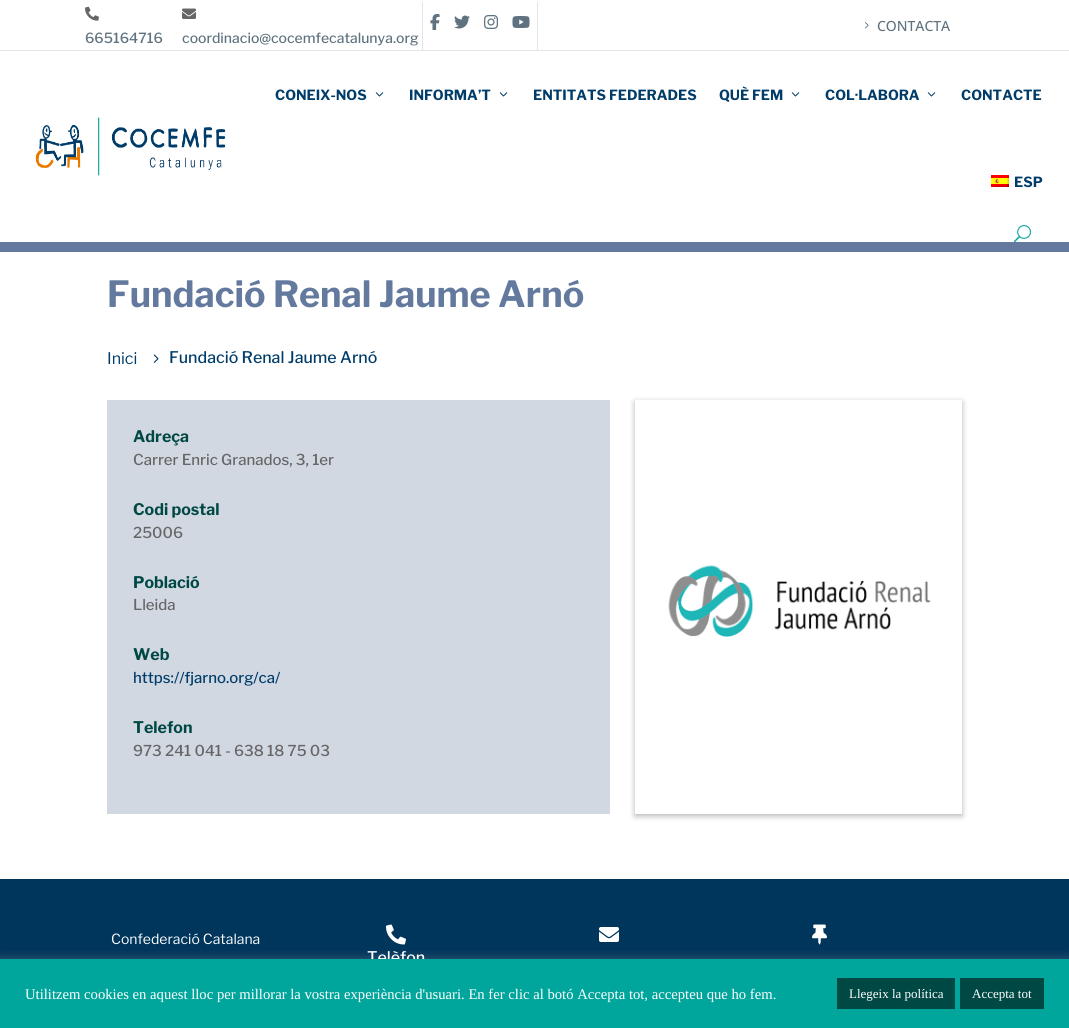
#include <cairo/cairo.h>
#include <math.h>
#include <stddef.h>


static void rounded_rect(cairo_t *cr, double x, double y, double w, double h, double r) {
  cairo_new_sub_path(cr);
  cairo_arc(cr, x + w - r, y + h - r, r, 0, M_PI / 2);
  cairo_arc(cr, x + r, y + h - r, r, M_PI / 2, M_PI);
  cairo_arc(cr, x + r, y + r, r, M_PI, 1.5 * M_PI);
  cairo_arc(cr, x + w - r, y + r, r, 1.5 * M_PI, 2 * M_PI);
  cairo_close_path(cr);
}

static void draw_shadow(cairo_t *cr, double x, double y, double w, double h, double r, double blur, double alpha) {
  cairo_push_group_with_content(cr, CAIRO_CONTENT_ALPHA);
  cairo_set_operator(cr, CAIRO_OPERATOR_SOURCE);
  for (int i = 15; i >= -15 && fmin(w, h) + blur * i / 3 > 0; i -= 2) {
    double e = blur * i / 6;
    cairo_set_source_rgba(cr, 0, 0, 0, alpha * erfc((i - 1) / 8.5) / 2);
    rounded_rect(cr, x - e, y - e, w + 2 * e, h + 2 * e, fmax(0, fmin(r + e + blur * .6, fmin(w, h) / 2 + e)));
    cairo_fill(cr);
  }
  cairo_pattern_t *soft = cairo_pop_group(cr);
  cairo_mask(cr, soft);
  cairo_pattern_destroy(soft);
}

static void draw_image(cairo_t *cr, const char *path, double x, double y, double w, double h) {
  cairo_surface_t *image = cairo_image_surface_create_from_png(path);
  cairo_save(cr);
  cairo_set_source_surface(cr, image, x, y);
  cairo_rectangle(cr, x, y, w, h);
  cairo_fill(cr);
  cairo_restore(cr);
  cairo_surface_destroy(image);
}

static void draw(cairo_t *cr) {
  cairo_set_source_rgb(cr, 1, 1, 1);
  cairo_paint(cr);
  cairo_set_source_rgb(cr, 223 / 255.0, 229 / 255.0, 232 / 255.0);
  cairo_rectangle(cr, 0, 50, 1069, 1);
  cairo_fill(cr);
  cairo_rectangle(cr, 537, 2, 1, 48);
  cairo_fill(cr);
  cairo_rectangle(cr, 422, 2, 1, 48);
  cairo_fill(cr);
  draw_image(cr, "images/1.png", 430, 14, 10, 16);
  draw_image(cr, "images/2.png", 454, 15, 16, 14);
  draw_image(cr, "images/3.png", 484, 15, 14, 14);
  draw_image(cr, "images/4.png", 512, 16, 18, 12);
  draw_image(cr, "images/5.png", 865, 22, 4, 7);
  draw_image(cr, "images/6.png", 85, 6, 14, 15);
  draw_image(cr, "images/7.png", 182, 8, 14, 11);
  draw_image(cr, "images/8.png", 35, 117, 191, 59);
  draw_image(cr, "images/9.png", 375, 92, 9, 5);
  draw_image(cr, "images/9.png", 499, 92, 9, 5);
  draw_image(cr, "images/9.png", 791, 92, 9, 5);
  draw_image(cr, "images/9.png", 927, 92, 9, 5);
  draw_image(cr, "images/10.png", 991, 175, 18, 12);
  draw_image(cr, "images/11.png", 1014, 225, 17, 17);
  cairo_set_source_rgb(cr, 99 / 255.0, 122 / 255.0, 158 / 255.0);
  cairo_rectangle(cr, 0, 242, 1069, 10);
  cairo_fill(cr);
  cairo_set_source_rgb(cr, 209 / 255.0, 216 / 255.0, 226 / 255.0);
  cairo_rectangle(cr, 107, 400, 503, 414);
  cairo_fill(cr);
  cairo_save(cr);
  cairo_set_fill_rule(cr, CAIRO_FILL_RULE_EVEN_ODD);
  cairo_new_path(cr);
  cairo_move_to(cr, 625, 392);
  cairo_line_to(cr, 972, 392);
  cairo_line_to(cr, 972, 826);
  cairo_line_to(cr, 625, 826);
  cairo_close_path(cr);
  cairo_move_to(cr, 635, 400);
  cairo_line_to(cr, 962, 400);
  cairo_line_to(cr, 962, 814);
  cairo_line_to(cr, 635, 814);
  cairo_close_path(cr);
  cairo_clip(cr);
  cairo_set_source_rgb(cr, 0, 0, 0);
  draw_shadow(cr, 635, 402, 327, 414, 0, 3, 0.3);
  cairo_restore(cr);
  draw_image(cr, "images/12.png", 668, 565, 263, 72);
  cairo_set_source_rgb(cr, 0, 53 / 255.0, 92 / 255.0);
  cairo_rectangle(cr, 0, 879, 1069, 80);
  cairo_fill(cr);
  draw_image(cr, "images/13.png", 599, 927, 20, 15);
  draw_image(cr, "images/14.png", 812, 924, 15, 21);
  draw_image(cr, "images/15.png", 386, 924, 20, 21);
  cairo_set_source_rgb(cr, 172 / 255.0, 171 / 255.0, 171 / 255.0);
  draw_shadow(cr, 0, 958, 1069, 69, 0, 5, 0.3);
  cairo_select_font_face(cr, "Open Sans Medium", CAIRO_FONT_SLANT_NORMAL, CAIRO_FONT_WEIGHT_NORMAL);
  cairo_set_font_size(cr, 14);
  cairo_set_source_rgb(cr, 95 / 255.0, 114 / 255.0, 127 / 255.0);
  cairo_move_to(cr, 877, 31);
  cairo_show_text(cr, "CONTACTA");
  cairo_select_font_face(cr, "Libre Franklin Medium", CAIRO_FONT_SLANT_NORMAL, CAIRO_FONT_WEIGHT_NORMAL);
  cairo_move_to(cr, 85, 43);
  cairo_show_text(cr, "665164716");
  cairo_move_to(cr, 182, 43);
  cairo_show_text(cr, "coordinacio@cocemfecatalunya.org");
  cairo_select_font_face(cr, "Libre Franklin", CAIRO_FONT_SLANT_NORMAL, CAIRO_FONT_WEIGHT_BOLD);
  cairo_set_source_rgb(cr, 0, 60 / 255.0, 105 / 255.0);
  cairo_move_to(cr, 275, 100);
  cairo_show_text(cr, "CONEIX-NOS");
  cairo_move_to(cr, 409, 100);
  cairo_show_text(cr, "INFORMA’T");
  cairo_move_to(cr, 533, 100);
  cairo_show_text(cr, "ENTITATS FEDERADES");
  cairo_move_to(cr, 719, 100);
  cairo_show_text(cr, "QUÈ FEM");
  cairo_move_to(cr, 825, 100);
  cairo_show_text(cr, "COL·LABORA");
  cairo_move_to(cr, 961, 100);
  cairo_show_text(cr, "CONTACTE");
  cairo_move_to(cr, 1014, 187);
  cairo_show_text(cr, "ESP");
  cairo_set_font_size(cr, 36);
  cairo_set_source_rgb(cr, 99 / 255.0, 122 / 255.0, 158 / 255.0);
  cairo_move_to(cr, 107, 307);
  cairo_show_text(cr, "Fundació Renal Jaume Arnó");
  cairo_select_font_face(cr, "Libre Franklin", CAIRO_FONT_SLANT_NORMAL, CAIRO_FONT_WEIGHT_NORMAL);
  cairo_set_font_size(cr, 16);
  cairo_set_source_rgb(cr, 0, 60 / 255.0, 105 / 255.0);
  cairo_move_to(cr, 107, 364);
  cairo_show_text(cr, "Inici");
  cairo_select_font_face(cr, "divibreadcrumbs", CAIRO_FONT_SLANT_NORMAL, CAIRO_FONT_WEIGHT_NORMAL);
  cairo_set_font_size(cr, 18);
  cairo_move_to(cr, 146, 366);
  cairo_show_text(cr, "5");
  cairo_select_font_face(cr, "Libre Franklin Medium", CAIRO_FONT_SLANT_NORMAL, CAIRO_FONT_WEIGHT_NORMAL);
  cairo_set_font_size(cr, 16);
  cairo_move_to(cr, 169, 363);
  cairo_show_text(cr, "Fundació Renal Jaume Arnó");
  cairo_select_font_face(cr, "Libre Franklin", CAIRO_FONT_SLANT_NORMAL, CAIRO_FONT_WEIGHT_BOLD);
  cairo_set_source_rgb(cr, 0, 72 / 255.0, 68 / 255.0);
  cairo_move_to(cr, 133, 442);
  cairo_show_text(cr, "Adreça");
  cairo_select_font_face(cr, "Libre Franklin Medium", CAIRO_FONT_SLANT_NORMAL, CAIRO_FONT_WEIGHT_NORMAL);
  cairo_set_font_size(cr, 15);
  cairo_set_source_rgb(cr, 102 / 255.0, 102 / 255.0, 102 / 255.0);
  cairo_move_to(cr, 133, 465);
  cairo_show_text(cr, "Carrer Enric Granados, 3, 1er");
  cairo_select_font_face(cr, "Libre Franklin", CAIRO_FONT_SLANT_NORMAL, CAIRO_FONT_WEIGHT_BOLD);
  cairo_set_font_size(cr, 16);
  cairo_set_source_rgb(cr, 0, 72 / 255.0, 68 / 255.0);
  cairo_move_to(cr, 133, 515);
  cairo_show_text(cr, "Codi postal");
  cairo_select_font_face(cr, "Libre Franklin Medium", CAIRO_FONT_SLANT_NORMAL, CAIRO_FONT_WEIGHT_NORMAL);
  cairo_set_font_size(cr, 15);
  cairo_set_source_rgb(cr, 102 / 255.0, 102 / 255.0, 102 / 255.0);
  cairo_move_to(cr, 133, 538);
  cairo_show_text(cr, "25006");
  cairo_select_font_face(cr, "Libre Franklin", CAIRO_FONT_SLANT_NORMAL, CAIRO_FONT_WEIGHT_BOLD);
  cairo_set_font_size(cr, 16);
  cairo_set_source_rgb(cr, 0, 72 / 255.0, 68 / 255.0);
  cairo_move_to(cr, 133, 588);
  cairo_show_text(cr, "Població");
  cairo_select_font_face(cr, "Libre Franklin Medium", CAIRO_FONT_SLANT_NORMAL, CAIRO_FONT_WEIGHT_NORMAL);
  cairo_set_font_size(cr, 15);
  cairo_set_source_rgb(cr, 102 / 255.0, 102 / 255.0, 102 / 255.0);
  cairo_move_to(cr, 133, 610);
  cairo_show_text(cr, "Lleida");
  cairo_select_font_face(cr, "Libre Franklin", CAIRO_FONT_SLANT_NORMAL, CAIRO_FONT_WEIGHT_BOLD);
  cairo_set_font_size(cr, 16);
  cairo_set_source_rgb(cr, 0, 72 / 255.0, 68 / 255.0);
  cairo_move_to(cr, 133, 660);
  cairo_show_text(cr, "Web");
  cairo_select_font_face(cr, "Libre Franklin Medium", CAIRO_FONT_SLANT_NORMAL, CAIRO_FONT_WEIGHT_NORMAL);
  cairo_set_font_size(cr, 15);
  cairo_set_source_rgb(cr, 0, 60 / 255.0, 105 / 255.0);
  cairo_move_to(cr, 133, 683);
  cairo_show_text(cr, "https://fjarno.org/ca/");
  cairo_select_font_face(cr, "Libre Franklin", CAIRO_FONT_SLANT_NORMAL, CAIRO_FONT_WEIGHT_BOLD);
  cairo_set_font_size(cr, 16);
  cairo_set_source_rgb(cr, 0, 72 / 255.0, 68 / 255.0);
  cairo_move_to(cr, 133, 733);
  cairo_show_text(cr, "Telefon");
  cairo_select_font_face(cr, "Libre Franklin Medium", CAIRO_FONT_SLANT_NORMAL, CAIRO_FONT_WEIGHT_NORMAL);
  cairo_set_font_size(cr, 15);
  cairo_set_source_rgb(cr, 102 / 255.0, 102 / 255.0, 102 / 255.0);
  cairo_move_to(cr, 133, 756);
  cairo_show_text(cr, "973 241 041 - 638 18 75 03");
  cairo_select_font_face(cr, "Libre Franklin", CAIRO_FONT_SLANT_NORMAL, CAIRO_FONT_WEIGHT_NORMAL);
  cairo_set_font_size(cr, 14);
  cairo_set_source_rgb(cr, 1, 1, 1);
  cairo_move_to(cr, 111, 944);
  cairo_show_text(cr, "Confederació Catalana");
  cairo_select_font_face(cr, "Libre Franklin Medium", CAIRO_FONT_SLANT_NORMAL, CAIRO_FONT_WEIGHT_NORMAL);
  cairo_set_font_size(cr, 16);
  cairo_move_to(cr, 367, 963);
  cairo_show_text(cr, "Telèfon");
  cairo_set_source_rgb(cr, 0, 165 / 255.0, 156 / 255.0);
  cairo_rectangle(cr, 0, 959, 1069, 69);
  cairo_fill(cr);
  cairo_select_font_face(cr, "Liberation Serif", CAIRO_FONT_SLANT_NORMAL, CAIRO_FONT_WEIGHT_NORMAL);
  cairo_set_font_size(cr, 14.67);
  cairo_set_source_rgb(cr, 1, 1, 1);
  cairo_move_to(cr, 25, 999);
  cairo_show_text(cr, "Utilitzem cookies en aquest lloc per millorar la vostra experiència d'usuari. En fer clic al botó Accepta tot, accepteu que ho fem.");
  cairo_set_source_rgb(cr, 0, 72 / 255.0, 68 / 255.0);
  cairo_rectangle(cr, 837, 978, 118, 31);
  cairo_fill(cr);
  cairo_set_font_size(cr, 13);
  cairo_set_source_rgb(cr, 1, 1, 1);
  cairo_move_to(cr, 849, 998);
  cairo_show_text(cr, "Llegeix la política");
  cairo_set_source_rgb(cr, 0, 72 / 255.0, 68 / 255.0);
  cairo_rectangle(cr, 960, 978, 84, 31);
  cairo_fill(cr);
  cairo_set_source_rgb(cr, 1, 1, 1);
  cairo_move_to(cr, 972, 998);
  cairo_show_text(cr, "Accepta tot");
}

int main(void) {
  cairo_surface_t *surface = cairo_image_surface_create(CAIRO_FORMAT_RGB24, 1069, 1028);
  cairo_t *cr = cairo_create(surface);
  cairo_font_options_t *options = cairo_font_options_create();
  cairo_font_options_set_hint_metrics(options, CAIRO_HINT_METRICS_OFF);
  cairo_font_options_set_hint_style(options, CAIRO_HINT_STYLE_NONE);
  cairo_set_font_options(cr, options);
  cairo_set_miter_limit(cr, 4);
  draw(cr);
  cairo_surface_write_to_png(surface, "out.png");
  cairo_font_options_destroy(options);
  cairo_destroy(cr);
  cairo_surface_destroy(surface);
  return 0;
}
